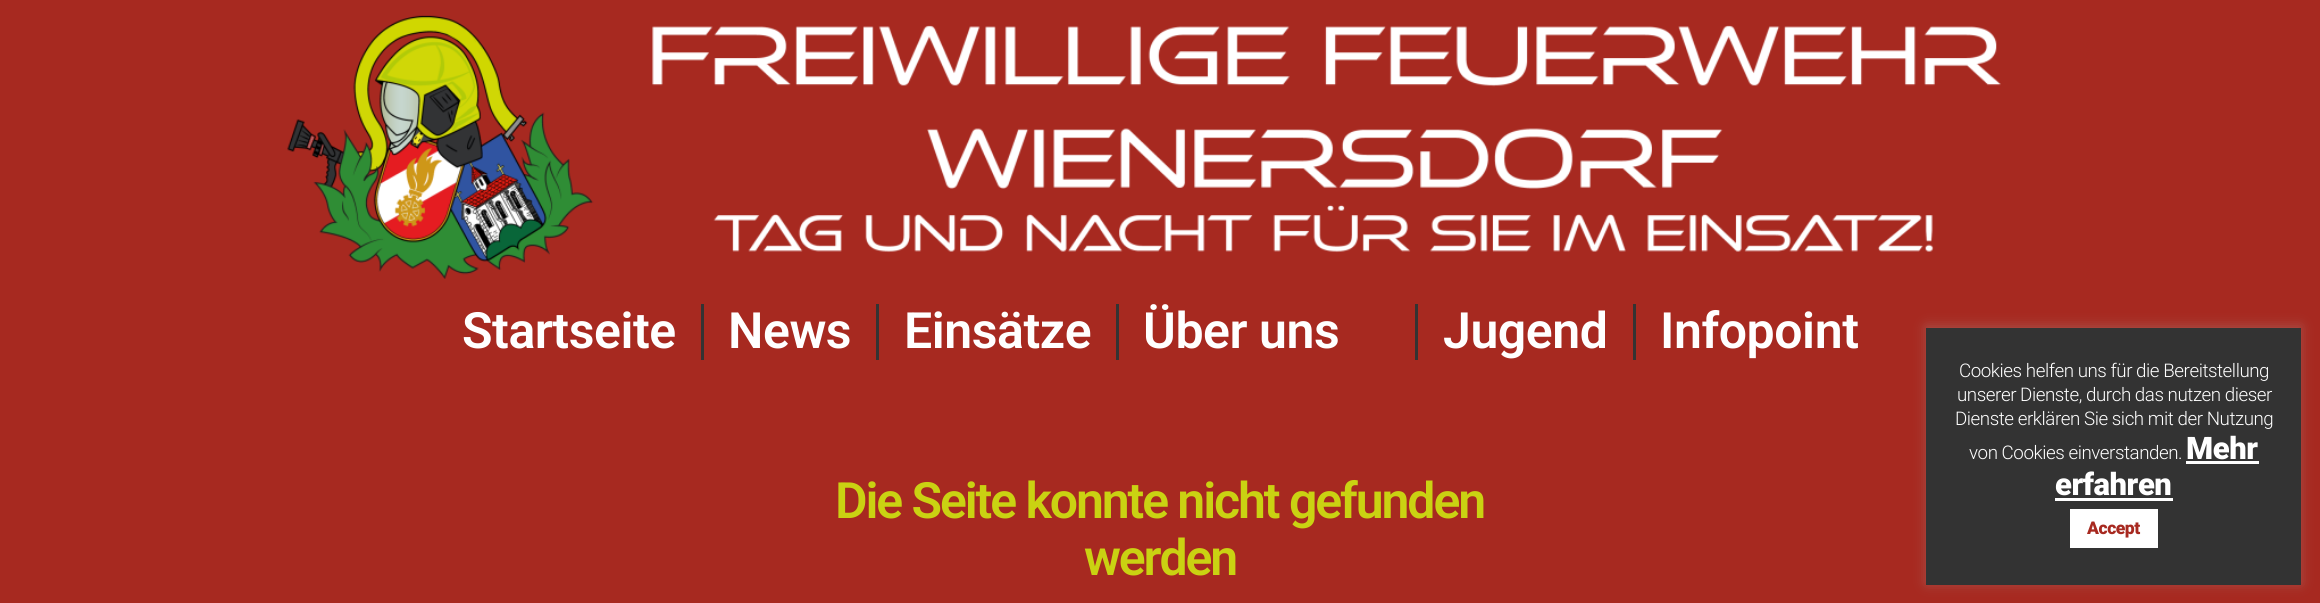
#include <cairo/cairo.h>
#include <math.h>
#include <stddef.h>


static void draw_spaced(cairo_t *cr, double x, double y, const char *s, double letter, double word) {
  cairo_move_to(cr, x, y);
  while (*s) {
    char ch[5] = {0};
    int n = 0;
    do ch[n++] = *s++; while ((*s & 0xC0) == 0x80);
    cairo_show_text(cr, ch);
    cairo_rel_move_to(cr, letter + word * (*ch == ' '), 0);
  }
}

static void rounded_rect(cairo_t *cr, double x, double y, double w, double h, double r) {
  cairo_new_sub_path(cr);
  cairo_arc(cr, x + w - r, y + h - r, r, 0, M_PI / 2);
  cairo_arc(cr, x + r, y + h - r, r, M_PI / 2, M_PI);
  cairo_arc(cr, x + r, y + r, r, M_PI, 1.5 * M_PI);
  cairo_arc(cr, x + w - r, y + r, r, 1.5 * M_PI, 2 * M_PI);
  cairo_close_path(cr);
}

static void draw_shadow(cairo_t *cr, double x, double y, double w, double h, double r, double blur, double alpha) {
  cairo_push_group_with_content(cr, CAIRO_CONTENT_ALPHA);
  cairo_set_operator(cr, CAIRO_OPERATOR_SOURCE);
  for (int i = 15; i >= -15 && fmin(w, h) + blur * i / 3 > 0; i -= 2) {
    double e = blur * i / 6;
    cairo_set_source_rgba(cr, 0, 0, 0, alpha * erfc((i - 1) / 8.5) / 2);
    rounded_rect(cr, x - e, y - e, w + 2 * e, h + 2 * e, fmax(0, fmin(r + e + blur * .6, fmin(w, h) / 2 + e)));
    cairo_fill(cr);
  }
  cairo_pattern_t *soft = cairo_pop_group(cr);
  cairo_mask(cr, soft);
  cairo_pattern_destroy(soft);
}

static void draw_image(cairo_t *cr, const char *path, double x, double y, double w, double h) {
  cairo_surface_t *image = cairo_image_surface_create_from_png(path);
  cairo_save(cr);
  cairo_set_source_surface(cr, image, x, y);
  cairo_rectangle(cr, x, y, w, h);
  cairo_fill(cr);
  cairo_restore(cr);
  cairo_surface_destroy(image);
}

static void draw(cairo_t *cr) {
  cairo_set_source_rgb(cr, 167 / 255.0, 41 / 255.0, 32 / 255.0);
  cairo_paint(cr);
  draw_image(cr, "images/1.png", 287, 15, 1714, 264);
  cairo_set_source_rgb(cr, 51 / 255.0, 51 / 255.0, 51 / 255.0);
  cairo_rectangle(cr, 701, 304, 3, 56);
  cairo_fill(cr);
  cairo_rectangle(cr, 876, 304, 3, 56);
  cairo_fill(cr);
  cairo_rectangle(cr, 1116, 304, 3, 56);
  cairo_fill(cr);
  cairo_rectangle(cr, 1415, 304, 3, 56);
  cairo_fill(cr);
  cairo_rectangle(cr, 1633, 304, 3, 56);
  cairo_fill(cr);
  cairo_set_source_rgb(cr, 172 / 255.0, 171 / 255.0, 171 / 255.0);
  draw_shadow(cr, 1926, 326, 375, 258, 0, 6, 0.3);
  cairo_set_source_rgb(cr, 51 / 255.0, 51 / 255.0, 51 / 255.0);
  cairo_rectangle(cr, 1926, 328, 375, 257);
  cairo_fill(cr);
  cairo_set_source_rgb(cr, 1, 1, 1);
  cairo_rectangle(cr, 2186, 461, 73, 3);
  cairo_fill(cr);
  cairo_rectangle(cr, 2055, 498, 118, 3);
  cairo_fill(cr);
  cairo_rectangle(cr, 2070, 509, 88, 39);
  cairo_fill(cr);
  cairo_select_font_face(cr, "Roboto SemiBold", CAIRO_FONT_SLANT_NORMAL, CAIRO_FONT_WEIGHT_NORMAL);
  cairo_set_font_size(cr, 50);
  draw_spaced(cr, 462, 348, "Startseite", -0.45, 0);
  draw_spaced(cr, 728, 348, "News", -0.45, 0);
  draw_spaced(cr, 904, 348, "Einsätze", -0.45, 0);
  draw_spaced(cr, 1143, 348, "Über uns", -0.45, 0);
  draw_spaced(cr, 1443, 348, "Jugend", -0.45, 0);
  draw_spaced(cr, 1660, 348, "Infopoint", -0.45, 0);
  cairo_set_source_rgb(cr, 202 / 255.0, 210 / 255.0, 18 / 255.0);
  draw_spaced(cr, 835, 518, "Die Seite konnte nicht gefunden", -2.1, 0);
  draw_spaced(cr, 1084, 575, "werden", -2.1, 0);
  cairo_select_font_face(cr, "Roboto Light", CAIRO_FONT_SLANT_NORMAL, CAIRO_FONT_WEIGHT_NORMAL);
  cairo_set_font_size(cr, 18.75);
  cairo_set_source_rgb(cr, 1, 1, 1);
  draw_spaced(cr, 1959, 377, "Cookies helfen uns für die Bereitstellung", -0.45, 0);
  draw_spaced(cr, 1957, 401, "unserer Dienste, durch das nutzen dieser", -0.45, 0);
  draw_spaced(cr, 1955, 425, "Dienste erklären Sie sich mit der Nutzung", -0.45, 0);
  draw_spaced(cr, 1969, 459, "von Cookies einverstanden.", -0.45, 0);
  cairo_select_font_face(cr, "Roboto Black", CAIRO_FONT_SLANT_NORMAL, CAIRO_FONT_WEIGHT_NORMAL);
  cairo_set_font_size(cr, 31);
  draw_spaced(cr, 2186, 459, "Mehr", -0.45, 0);
  draw_spaced(cr, 2055, 495, "erfahren", -0.45, 0);
  cairo_set_font_size(cr, 17.5);
  cairo_set_source_rgb(cr, 167 / 255.0, 41 / 255.0, 32 / 255.0);
  draw_spaced(cr, 2087, 534, "Accept", -0.45, 0);
}

int main(void) {
  cairo_surface_t *surface = cairo_image_surface_create(CAIRO_FORMAT_RGB24, 2320, 603);
  cairo_t *cr = cairo_create(surface);
  cairo_font_options_t *options = cairo_font_options_create();
  cairo_font_options_set_hint_metrics(options, CAIRO_HINT_METRICS_OFF);
  cairo_font_options_set_hint_style(options, CAIRO_HINT_STYLE_NONE);
  cairo_set_font_options(cr, options);
  cairo_set_miter_limit(cr, 4);
  draw(cr);
  cairo_surface_write_to_png(surface, "out.png");
  cairo_font_options_destroy(options);
  cairo_destroy(cr);
  cairo_surface_destroy(surface);
  return 0;
}
